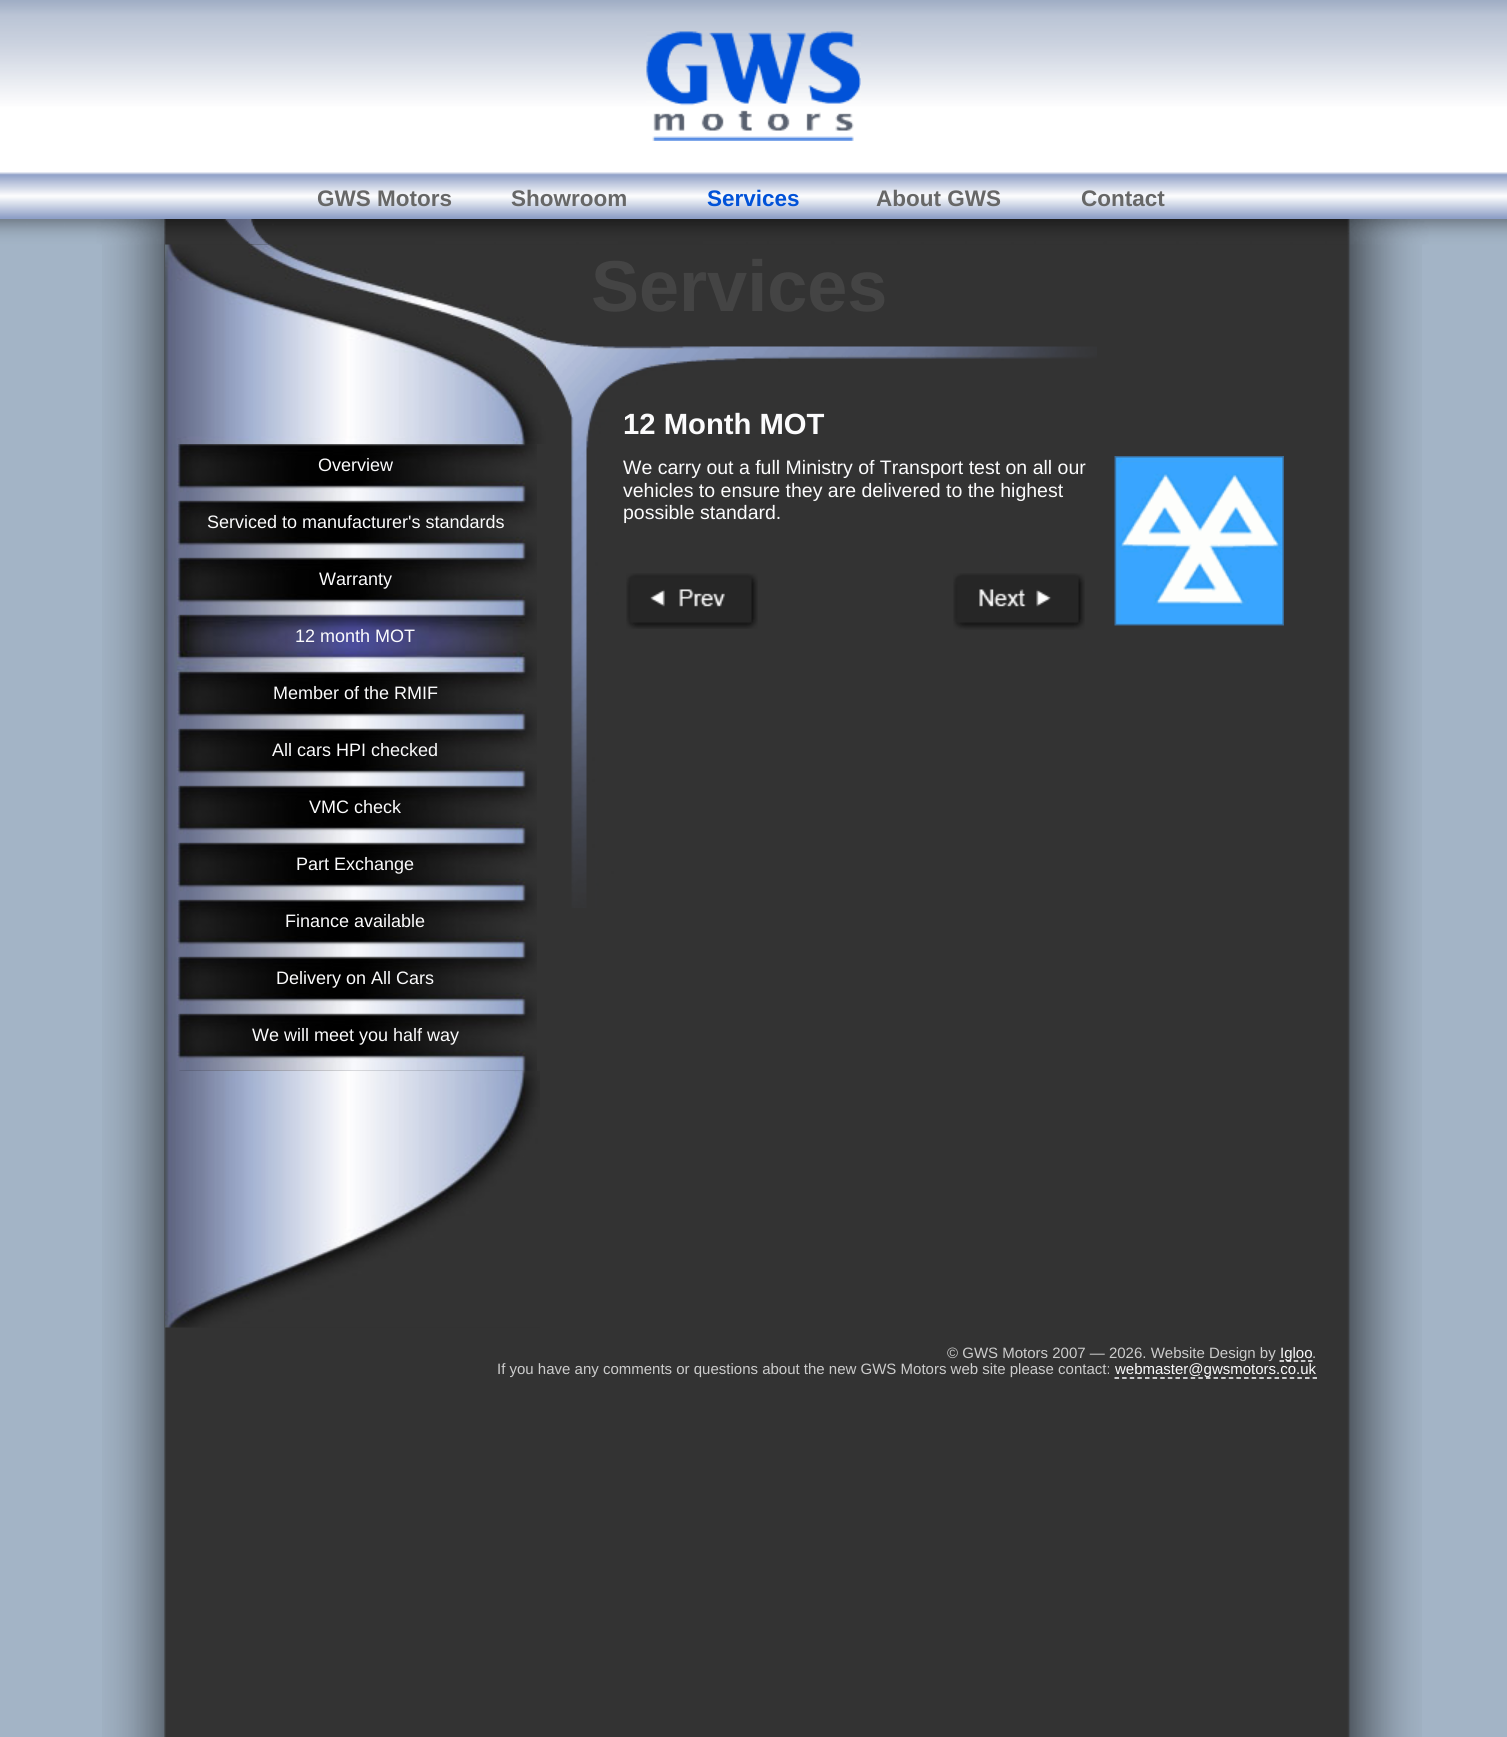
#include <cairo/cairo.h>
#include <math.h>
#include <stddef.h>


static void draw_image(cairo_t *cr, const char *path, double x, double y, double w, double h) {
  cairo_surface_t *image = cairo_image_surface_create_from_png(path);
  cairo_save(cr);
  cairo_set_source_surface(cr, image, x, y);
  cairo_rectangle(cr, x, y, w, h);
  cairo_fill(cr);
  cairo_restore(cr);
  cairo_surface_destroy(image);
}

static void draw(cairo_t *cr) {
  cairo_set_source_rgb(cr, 163 / 255.0, 180 / 255.0, 198 / 255.0);
  cairo_paint(cr);
  draw_image(cr, "images/1.png", 102, 244, 1320, 1493);
  draw_image(cr, "images/2.png", 0, 0, 1507, 219);
  draw_image(cr, "images/3.png", 646, 31, 215, 110);
  draw_image(cr, "images/4.png", 0, 219, 1507, 26);
  draw_image(cr, "images/5.png", 546, 338, 551, 570);
  draw_image(cr, "images/6.png", 1114, 456, 170, 170);
  draw_image(cr, "images/7.png", 626, 573, 132, 56);
  draw_image(cr, "images/8.png", 953, 573, 132, 57);
  draw_image(cr, "images/9.png", 165, 244, 381, 200);
  draw_image(cr, "images/10.png", 165, 444, 372, 57);
  draw_image(cr, "images/11.png", 179, 444, 346, 57);
  draw_image(cr, "images/10.png", 165, 501, 372, 57);
  draw_image(cr, "images/12.png", 179, 501, 346, 57);
  draw_image(cr, "images/10.png", 165, 558, 372, 57);
  draw_image(cr, "images/13.png", 179, 558, 346, 57);
  draw_image(cr, "images/10.png", 165, 615, 372, 57);
  draw_image(cr, "images/14.png", 174, 615, 351, 57);
  draw_image(cr, "images/10.png", 165, 672, 372, 57);
  draw_image(cr, "images/15.png", 179, 672, 346, 57);
  draw_image(cr, "images/10.png", 165, 729, 372, 57);
  draw_image(cr, "images/16.png", 179, 729, 346, 57);
  draw_image(cr, "images/10.png", 165, 786, 372, 57);
  draw_image(cr, "images/17.png", 179, 786, 346, 57);
  draw_image(cr, "images/10.png", 165, 843, 372, 57);
  draw_image(cr, "images/18.png", 179, 843, 346, 57);
  draw_image(cr, "images/10.png", 165, 900, 372, 57);
  draw_image(cr, "images/19.png", 179, 900, 346, 57);
  draw_image(cr, "images/10.png", 165, 957, 372, 57);
  draw_image(cr, "images/20.png", 179, 957, 346, 57);
  draw_image(cr, "images/10.png", 165, 1014, 372, 57);
  draw_image(cr, "images/21.png", 179, 1014, 346, 57);
  draw_image(cr, "images/22.png", 165, 1071, 375, 257);
  cairo_new_path(cr);
  cairo_move_to(cr, 1279.5, 1361);
  cairo_line_to(cr, 1312.5, 1361);
  cairo_set_source_rgb(cr, 251 / 255.0, 251 / 255.0, 252 / 255.0);
  cairo_set_line_width(cr, 1.5);
  cairo_set_dash(cr, (double[]){4.5, 2.62}, 2, 0);
  cairo_stroke(cr);
  cairo_new_path(cr);
  cairo_move_to(cr, 1114.5, 1378);
  cairo_line_to(cr, 1317, 1378);
  cairo_set_dash(cr, (double[]){4.5, 3.12}, 2, 0);
  cairo_stroke(cr);
  cairo_select_font_face(cr, "Liberation Sans", CAIRO_FONT_SLANT_NORMAL, CAIRO_FONT_WEIGHT_BOLD);
  cairo_set_font_size(cr, 22.5);
  cairo_set_source_rgb(cr, 103 / 255.0, 103 / 255.0, 103 / 255.0);
  cairo_move_to(cr, 317, 206);
  cairo_show_text(cr, "GWS Motors");
  cairo_move_to(cr, 511, 206);
  cairo_show_text(cr, "Showroom");
  cairo_set_source_rgb(cr, 1 / 255.0, 82 / 255.0, 216 / 255.0);
  cairo_move_to(cr, 707, 206);
  cairo_show_text(cr, "Services");
  cairo_set_source_rgb(cr, 103 / 255.0, 103 / 255.0, 103 / 255.0);
  cairo_move_to(cr, 876, 206);
  cairo_show_text(cr, "About GWS");
  cairo_move_to(cr, 1081, 206);
  cairo_show_text(cr, "Contact");
  cairo_set_font_size(cr, 72);
  cairo_set_source_rgb(cr, 68 / 255.0, 68 / 255.0, 68 / 255.0);
  cairo_move_to(cr, 591, 311);
  cairo_show_text(cr, "Services");
  cairo_set_font_size(cr, 29.25);
  cairo_set_source_rgb(cr, 251 / 255.0, 251 / 255.0, 252 / 255.0);
  cairo_move_to(cr, 623, 434);
  cairo_show_text(cr, "12 Month MOT");
  cairo_select_font_face(cr, "Liberation Sans", CAIRO_FONT_SLANT_NORMAL, CAIRO_FONT_WEIGHT_NORMAL);
  cairo_set_font_size(cr, 19.5);
  cairo_move_to(cr, 623, 474);
  cairo_show_text(cr, "We carry out a full Ministry of Transport test on all our");
  cairo_move_to(cr, 623, 497);
  cairo_show_text(cr, "vehicles to ensure they are delivered to the highest");
  cairo_move_to(cr, 623, 519);
  cairo_show_text(cr, "possible standard.");
  cairo_set_font_size(cr, 18);
  cairo_move_to(cr, 318, 471);
  cairo_show_text(cr, "Overview");
  cairo_move_to(cr, 207, 528);
  cairo_show_text(cr, "Serviced to manufacturer's standards");
  cairo_move_to(cr, 319, 585);
  cairo_show_text(cr, "Warranty");
  cairo_move_to(cr, 295, 642);
  cairo_show_text(cr, "12 month MOT");
  cairo_move_to(cr, 273, 699);
  cairo_show_text(cr, "Member of the RMIF");
  cairo_move_to(cr, 272, 756);
  cairo_show_text(cr, "All cars HPI checked");
  cairo_move_to(cr, 309, 813);
  cairo_show_text(cr, "VMC check");
  cairo_move_to(cr, 296, 870);
  cairo_show_text(cr, "Part Exchange");
  cairo_move_to(cr, 285, 927);
  cairo_show_text(cr, "Finance available");
  cairo_move_to(cr, 276, 984);
  cairo_show_text(cr, "Delivery on All Cars");
  cairo_move_to(cr, 252, 1041);
  cairo_show_text(cr, "We will meet you half way");
  cairo_set_font_size(cr, 15);
  cairo_set_source_rgb(cr, 204 / 255.0, 204 / 255.0, 204 / 255.0);
  cairo_move_to(cr, 947, 1358);
  cairo_show_text(cr, "© GWS Motors 2007 — 2026. Website Design by");
  cairo_set_source_rgb(cr, 251 / 255.0, 251 / 255.0, 252 / 255.0);
  cairo_move_to(cr, 1280, 1358);
  cairo_show_text(cr, "Igloo");
  cairo_set_source_rgb(cr, 204 / 255.0, 204 / 255.0, 204 / 255.0);
  cairo_move_to(cr, 1312, 1358);
  cairo_show_text(cr, ".");
  cairo_move_to(cr, 497, 1374);
  cairo_show_text(cr, "If you have any comments or questions about the new GWS Motors web site please contact:");
  cairo_set_source_rgb(cr, 251 / 255.0, 251 / 255.0, 252 / 255.0);
  cairo_move_to(cr, 1115, 1374);
  cairo_show_text(cr, "webmaster@gwsmotors.co.uk");
}

int main(void) {
  cairo_surface_t *surface = cairo_image_surface_create(CAIRO_FORMAT_RGB24, 1507, 1737);
  cairo_t *cr = cairo_create(surface);
  cairo_font_options_t *options = cairo_font_options_create();
  cairo_font_options_set_hint_metrics(options, CAIRO_HINT_METRICS_OFF);
  cairo_font_options_set_hint_style(options, CAIRO_HINT_STYLE_NONE);
  cairo_set_font_options(cr, options);
  cairo_set_miter_limit(cr, 4);
  draw(cr);
  cairo_surface_write_to_png(surface, "out.png");
  cairo_font_options_destroy(options);
  cairo_destroy(cr);
  cairo_surface_destroy(surface);
  return 0;
}
